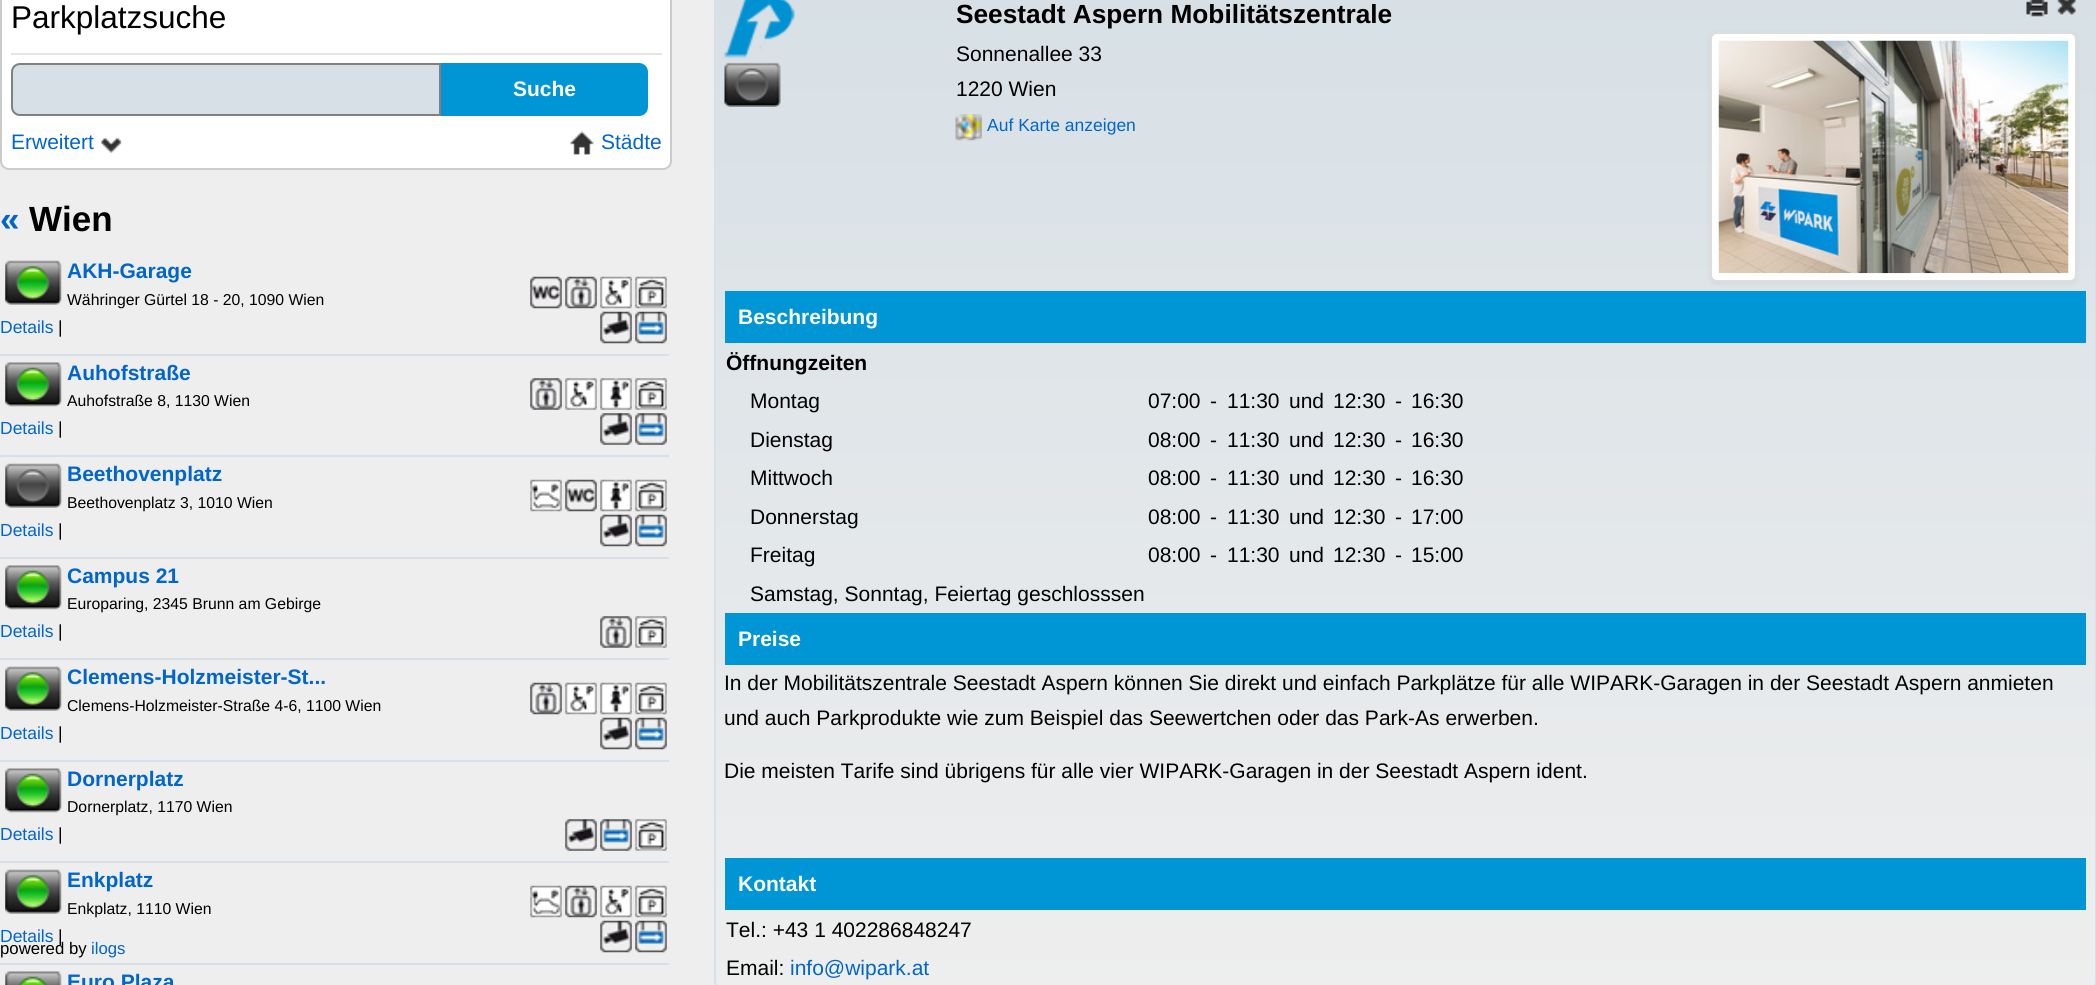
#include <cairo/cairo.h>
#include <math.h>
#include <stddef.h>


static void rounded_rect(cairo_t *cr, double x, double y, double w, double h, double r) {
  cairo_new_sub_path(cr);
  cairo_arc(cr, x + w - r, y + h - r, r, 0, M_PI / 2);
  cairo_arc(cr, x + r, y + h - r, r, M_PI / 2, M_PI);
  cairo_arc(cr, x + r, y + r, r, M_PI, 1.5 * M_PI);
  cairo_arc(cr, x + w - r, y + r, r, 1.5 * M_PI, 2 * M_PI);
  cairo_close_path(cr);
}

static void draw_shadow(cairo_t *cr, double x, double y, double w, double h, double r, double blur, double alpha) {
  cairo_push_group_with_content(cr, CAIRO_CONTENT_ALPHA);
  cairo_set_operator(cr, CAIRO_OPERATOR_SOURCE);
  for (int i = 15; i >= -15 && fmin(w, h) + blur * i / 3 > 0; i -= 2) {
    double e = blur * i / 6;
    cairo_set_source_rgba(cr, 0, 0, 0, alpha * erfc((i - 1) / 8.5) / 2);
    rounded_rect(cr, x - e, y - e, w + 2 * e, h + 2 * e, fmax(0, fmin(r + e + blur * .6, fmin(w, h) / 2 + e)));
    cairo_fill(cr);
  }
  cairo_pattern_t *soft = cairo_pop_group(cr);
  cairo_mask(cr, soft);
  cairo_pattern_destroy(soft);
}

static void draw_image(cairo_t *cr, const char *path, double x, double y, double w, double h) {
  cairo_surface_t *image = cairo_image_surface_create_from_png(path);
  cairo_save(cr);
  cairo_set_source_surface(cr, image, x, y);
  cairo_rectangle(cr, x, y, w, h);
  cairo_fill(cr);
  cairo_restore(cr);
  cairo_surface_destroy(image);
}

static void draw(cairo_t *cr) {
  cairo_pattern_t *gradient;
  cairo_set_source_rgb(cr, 238 / 255.0, 238 / 255.0, 238 / 255.0);
  cairo_paint(cr);
  cairo_set_source_rgb(cr, 1, 1, 1);
  rounded_rect(cr, 1, -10, 670, 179, 8);
  cairo_fill_preserve(cr);
  cairo_set_source_rgb(cr, 204 / 255.0, 204 / 255.0, 204 / 255.0);
  cairo_stroke(cr);
  cairo_set_source_rgb(cr, 229 / 255.0, 229 / 255.0, 229 / 255.0);
  cairo_rectangle(cr, 11, 53, 651, 2);
  cairo_fill(cr);
  cairo_set_source_rgb(cr, 215 / 255.0, 224 / 255.0, 230 / 255.0);
  cairo_new_path(cr);
  cairo_move_to(cr, 20, 64);
  cairo_line_to(cr, 440, 64);
  cairo_line_to(cr, 440, 115);
  cairo_line_to(cr, 20, 115);
  cairo_curve_to(cr, 15.5, 115, 12, 111.5, 12, 107);
  cairo_line_to(cr, 12, 72);
  cairo_curve_to(cr, 12, 67.5, 15.5, 64, 20, 64);
  cairo_close_path(cr);
  cairo_fill_preserve(cr);
  cairo_set_source_rgb(cr, 128 / 255.0, 128 / 255.0, 128 / 255.0);
  cairo_stroke(cr);
  cairo_set_source_rgb(cr, 0, 150 / 255.0, 213 / 255.0);
  cairo_new_path(cr);
  cairo_move_to(cr, 441, 63);
  cairo_line_to(cr, 639, 63);
  cairo_curve_to(cr, 644, 63, 648, 67, 648, 72);
  cairo_line_to(cr, 648, 107);
  cairo_curve_to(cr, 648, 112, 644, 116, 639, 116);
  cairo_line_to(cr, 441, 116);
  cairo_close_path(cr);
  cairo_fill(cr);
  draw_image(cr, "images/1.png", 100, 138, 22, 15);
  draw_image(cr, "images/2.png", 570, 131, 24, 24);
  cairo_set_source_rgb(cr, 215 / 255.0, 224 / 255.0, 230 / 255.0);
  cairo_rectangle(cr, 0, 354, 669, 2);
  cairo_fill(cr);
  draw_image(cr, "images/3.png", 5, 260, 57, 45);
  draw_image(cr, "images/4.png", 530, 276, 32, 33);
  draw_image(cr, "images/5.png", 565, 276, 32, 33);
  draw_image(cr, "images/6.png", 600, 276, 32, 33);
  draw_image(cr, "images/7.png", 635, 276, 32, 33);
  draw_image(cr, "images/8.png", 600, 311, 32, 33);
  draw_image(cr, "images/9.png", 635, 311, 32, 33);
  cairo_rectangle(cr, 0, 455, 669, 2);
  cairo_fill(cr);
  draw_image(cr, "images/10.png", 5, 362, 57, 45);
  draw_image(cr, "images/11.png", 530, 378, 32, 32);
  draw_image(cr, "images/12.png", 565, 378, 32, 32);
  draw_image(cr, "images/13.png", 600, 378, 32, 32);
  draw_image(cr, "images/14.png", 635, 378, 32, 32);
  draw_image(cr, "images/15.png", 600, 413, 32, 32);
  draw_image(cr, "images/16.png", 635, 413, 32, 32);
  cairo_rectangle(cr, 0, 557, 669, 2);
  cairo_fill(cr);
  draw_image(cr, "images/17.png", 5, 463, 57, 45);
  draw_image(cr, "images/18.png", 530, 479, 32, 33);
  draw_image(cr, "images/4.png", 565, 479, 32, 33);
  draw_image(cr, "images/19.png", 600, 479, 32, 33);
  draw_image(cr, "images/7.png", 635, 479, 32, 33);
  draw_image(cr, "images/8.png", 600, 514, 32, 33);
  draw_image(cr, "images/9.png", 635, 514, 32, 33);
  cairo_rectangle(cr, 0, 658, 669, 2);
  cairo_fill(cr);
  draw_image(cr, "images/10.png", 5, 565, 57, 45);
  draw_image(cr, "images/11.png", 600, 616, 32, 32);
  draw_image(cr, "images/14.png", 635, 616, 32, 32);
  cairo_rectangle(cr, 0, 760, 669, 2);
  cairo_fill(cr);
  draw_image(cr, "images/3.png", 5, 666, 57, 45);
  draw_image(cr, "images/5.png", 530, 682, 32, 33);
  draw_image(cr, "images/6.png", 565, 682, 32, 33);
  draw_image(cr, "images/19.png", 600, 682, 32, 33);
  draw_image(cr, "images/7.png", 635, 682, 32, 33);
  draw_image(cr, "images/8.png", 600, 717, 32, 33);
  draw_image(cr, "images/9.png", 635, 717, 32, 33);
  cairo_rectangle(cr, 0, 861, 669, 2);
  cairo_fill(cr);
  draw_image(cr, "images/10.png", 5, 768, 57, 45);
  draw_image(cr, "images/15.png", 565, 819, 32, 32);
  draw_image(cr, "images/16.png", 600, 819, 32, 32);
  draw_image(cr, "images/14.png", 635, 819, 32, 32);
  cairo_rectangle(cr, 0, 963, 669, 2);
  cairo_fill(cr);
  draw_image(cr, "images/3.png", 5, 869, 57, 45);
  draw_image(cr, "images/18.png", 530, 885, 32, 33);
  draw_image(cr, "images/5.png", 565, 885, 32, 33);
  draw_image(cr, "images/6.png", 600, 885, 32, 33);
  draw_image(cr, "images/7.png", 635, 885, 32, 33);
  draw_image(cr, "images/8.png", 600, 920, 32, 33);
  draw_image(cr, "images/9.png", 635, 920, 32, 33);
  draw_image(cr, "images/20.png", 5, 971, 57, 14);
  cairo_save(cr);
  rounded_rect(cr, 714, -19, 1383, 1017, 18);
  cairo_clip(cr);
  gradient = cairo_pattern_create_linear(1405, -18, 1405, 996);
  cairo_pattern_add_color_stop_rgba(gradient, 0, 215 / 255.0, 224 / 255.0, 230 / 255.0, 1);
  cairo_pattern_add_color_stop_rgba(gradient, 1, 238 / 255.0, 238 / 255.0, 238 / 255.0, 1);
  cairo_set_source(cr, gradient);
  cairo_pattern_destroy(gradient);
  cairo_rectangle(cr, 714, 0, 1381, 985);
  cairo_fill(cr);
  cairo_restore(cr);
  rounded_rect(cr, 715, -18, 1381, 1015, 17);
  cairo_stroke(cr);
  draw_image(cr, "images/21.png", 724, 0, 71, 59);
  draw_image(cr, "images/22.png", 724, 62, 57, 45);
  draw_image(cr, "images/23.png", 955, 114, 27, 27);
  cairo_set_source_rgb(cr, 0, 0, 0);
  draw_shadow(cr, 1710, 33, 367, 251, 7, 2.5, 0.06);
  cairo_set_source_rgb(cr, 1, 1, 1);
  rounded_rect(cr, 1711, 33, 365, 248, 6);
  cairo_fill_preserve(cr);
  cairo_set_source_rgb(cr, 221 / 255.0, 221 / 255.0, 221 / 255.0);
  cairo_stroke(cr);
  draw_image(cr, "images/24.png", 1718, 40, 351, 234);
  draw_image(cr, "images/25.png", 2026, 0, 22, 18);
  draw_image(cr, "images/26.png", 2057, 0, 19, 16);
  cairo_set_source_rgb(cr, 0, 150 / 255.0, 213 / 255.0);
  cairo_rectangle(cr, 725, 291, 1361, 52);
  cairo_fill(cr);
  cairo_rectangle(cr, 725, 613, 1361, 52);
  cairo_fill(cr);
  cairo_rectangle(cr, 725, 858, 1361, 52);
  cairo_fill(cr);
  cairo_select_font_face(cr, "Liberation Sans", CAIRO_FONT_SLANT_NORMAL, CAIRO_FONT_WEIGHT_NORMAL);
  cairo_set_font_size(cr, 31.5);
  cairo_set_source_rgb(cr, 0, 0, 0);
  cairo_move_to(cr, 11, 28);
  cairo_show_text(cr, "Parkplatzsuche");
  cairo_select_font_face(cr, "Liberation Sans", CAIRO_FONT_SLANT_NORMAL, CAIRO_FONT_WEIGHT_BOLD);
  cairo_set_font_size(cr, 21);
  cairo_set_source_rgb(cr, 1, 1, 1);
  cairo_move_to(cr, 513, 96);
  cairo_show_text(cr, "Suche");
  cairo_select_font_face(cr, "Liberation Sans", CAIRO_FONT_SLANT_NORMAL, CAIRO_FONT_WEIGHT_NORMAL);
  cairo_set_source_rgb(cr, 0, 102 / 255.0, 204 / 255.0);
  cairo_move_to(cr, 11, 149);
  cairo_show_text(cr, "Erweitert");
  cairo_move_to(cr, 601, 149);
  cairo_show_text(cr, "Städte");
  cairo_select_font_face(cr, "Liberation Sans", CAIRO_FONT_SLANT_NORMAL, CAIRO_FONT_WEIGHT_BOLD);
  cairo_set_font_size(cr, 35);
  cairo_move_to(cr, 0, 231);
  cairo_show_text(cr, "«");
  cairo_set_source_rgb(cr, 0, 0, 0);
  cairo_move_to(cr, 29, 231);
  cairo_show_text(cr, "Wien");
  cairo_set_font_size(cr, 21);
  cairo_set_source_rgb(cr, 0, 102 / 255.0, 204 / 255.0);
  cairo_move_to(cr, 67, 278);
  cairo_show_text(cr, "AKH-Garage");
  cairo_select_font_face(cr, "Liberation Sans", CAIRO_FONT_SLANT_NORMAL, CAIRO_FONT_WEIGHT_NORMAL);
  cairo_set_font_size(cr, 15.75);
  cairo_set_source_rgb(cr, 0, 0, 0);
  cairo_move_to(cr, 67, 305);
  cairo_show_text(cr, "Währinger Gürtel 18 - 20, 1090 Wien");
  cairo_set_font_size(cr, 17.5);
  cairo_set_source_rgb(cr, 0, 102 / 255.0, 204 / 255.0);
  cairo_move_to(cr, 0, 333);
  cairo_show_text(cr, "Details");
  cairo_set_source_rgb(cr, 0, 0, 0);
  cairo_move_to(cr, 58, 333);
  cairo_show_text(cr, "|");
  cairo_select_font_face(cr, "Liberation Sans", CAIRO_FONT_SLANT_NORMAL, CAIRO_FONT_WEIGHT_BOLD);
  cairo_set_font_size(cr, 21);
  cairo_set_source_rgb(cr, 0, 102 / 255.0, 204 / 255.0);
  cairo_move_to(cr, 67, 380);
  cairo_show_text(cr, "Auhofstraße");
  cairo_select_font_face(cr, "Liberation Sans", CAIRO_FONT_SLANT_NORMAL, CAIRO_FONT_WEIGHT_NORMAL);
  cairo_set_font_size(cr, 15.75);
  cairo_set_source_rgb(cr, 0, 0, 0);
  cairo_move_to(cr, 67, 406);
  cairo_show_text(cr, "Auhofstraße 8, 1130 Wien");
  cairo_set_font_size(cr, 17.5);
  cairo_set_source_rgb(cr, 0, 102 / 255.0, 204 / 255.0);
  cairo_move_to(cr, 0, 434);
  cairo_show_text(cr, "Details");
  cairo_set_source_rgb(cr, 0, 0, 0);
  cairo_move_to(cr, 58, 434);
  cairo_show_text(cr, "|");
  cairo_select_font_face(cr, "Liberation Sans", CAIRO_FONT_SLANT_NORMAL, CAIRO_FONT_WEIGHT_BOLD);
  cairo_set_font_size(cr, 21);
  cairo_set_source_rgb(cr, 0, 102 / 255.0, 204 / 255.0);
  cairo_move_to(cr, 67, 481);
  cairo_show_text(cr, "Beethovenplatz");
  cairo_select_font_face(cr, "Liberation Sans", CAIRO_FONT_SLANT_NORMAL, CAIRO_FONT_WEIGHT_NORMAL);
  cairo_set_font_size(cr, 15.75);
  cairo_set_source_rgb(cr, 0, 0, 0);
  cairo_move_to(cr, 67, 508);
  cairo_show_text(cr, "Beethovenplatz 3, 1010 Wien");
  cairo_set_font_size(cr, 17.5);
  cairo_set_source_rgb(cr, 0, 102 / 255.0, 204 / 255.0);
  cairo_move_to(cr, 0, 536);
  cairo_show_text(cr, "Details");
  cairo_set_source_rgb(cr, 0, 0, 0);
  cairo_move_to(cr, 58, 536);
  cairo_show_text(cr, "|");
  cairo_select_font_face(cr, "Liberation Sans", CAIRO_FONT_SLANT_NORMAL, CAIRO_FONT_WEIGHT_BOLD);
  cairo_set_font_size(cr, 21);
  cairo_set_source_rgb(cr, 0, 102 / 255.0, 204 / 255.0);
  cairo_move_to(cr, 67, 583);
  cairo_show_text(cr, "Campus 21");
  cairo_select_font_face(cr, "Liberation Sans", CAIRO_FONT_SLANT_NORMAL, CAIRO_FONT_WEIGHT_NORMAL);
  cairo_set_font_size(cr, 15.75);
  cairo_set_source_rgb(cr, 0, 0, 0);
  cairo_move_to(cr, 67, 609);
  cairo_show_text(cr, "Europaring, 2345 Brunn am Gebirge");
  cairo_set_font_size(cr, 17.5);
  cairo_set_source_rgb(cr, 0, 102 / 255.0, 204 / 255.0);
  cairo_move_to(cr, 0, 637);
  cairo_show_text(cr, "Details");
  cairo_set_source_rgb(cr, 0, 0, 0);
  cairo_move_to(cr, 58, 637);
  cairo_show_text(cr, "|");
  cairo_select_font_face(cr, "Liberation Sans", CAIRO_FONT_SLANT_NORMAL, CAIRO_FONT_WEIGHT_BOLD);
  cairo_set_font_size(cr, 21);
  cairo_set_source_rgb(cr, 0, 102 / 255.0, 204 / 255.0);
  cairo_move_to(cr, 67, 684);
  cairo_show_text(cr, "Clemens-Holzmeister-St...");
  cairo_select_font_face(cr, "Liberation Sans", CAIRO_FONT_SLANT_NORMAL, CAIRO_FONT_WEIGHT_NORMAL);
  cairo_set_font_size(cr, 15.75);
  cairo_set_source_rgb(cr, 0, 0, 0);
  cairo_move_to(cr, 67, 711);
  cairo_show_text(cr, "Clemens-Holzmeister-Straße 4-6, 1100 Wien");
  cairo_set_font_size(cr, 17.5);
  cairo_set_source_rgb(cr, 0, 102 / 255.0, 204 / 255.0);
  cairo_move_to(cr, 0, 739);
  cairo_show_text(cr, "Details");
  cairo_set_source_rgb(cr, 0, 0, 0);
  cairo_move_to(cr, 58, 739);
  cairo_show_text(cr, "|");
  cairo_select_font_face(cr, "Liberation Sans", CAIRO_FONT_SLANT_NORMAL, CAIRO_FONT_WEIGHT_BOLD);
  cairo_set_font_size(cr, 21);
  cairo_set_source_rgb(cr, 0, 102 / 255.0, 204 / 255.0);
  cairo_move_to(cr, 67, 786);
  cairo_show_text(cr, "Dornerplatz");
  cairo_select_font_face(cr, "Liberation Sans", CAIRO_FONT_SLANT_NORMAL, CAIRO_FONT_WEIGHT_NORMAL);
  cairo_set_font_size(cr, 15.75);
  cairo_set_source_rgb(cr, 0, 0, 0);
  cairo_move_to(cr, 67, 812);
  cairo_show_text(cr, "Dornerplatz, 1170 Wien");
  cairo_set_font_size(cr, 17.5);
  cairo_set_source_rgb(cr, 0, 102 / 255.0, 204 / 255.0);
  cairo_move_to(cr, 0, 840);
  cairo_show_text(cr, "Details");
  cairo_set_source_rgb(cr, 0, 0, 0);
  cairo_move_to(cr, 58, 840);
  cairo_show_text(cr, "|");
  cairo_select_font_face(cr, "Liberation Sans", CAIRO_FONT_SLANT_NORMAL, CAIRO_FONT_WEIGHT_BOLD);
  cairo_set_font_size(cr, 21);
  cairo_set_source_rgb(cr, 0, 102 / 255.0, 204 / 255.0);
  cairo_move_to(cr, 67, 887);
  cairo_show_text(cr, "Enkplatz");
  cairo_select_font_face(cr, "Liberation Sans", CAIRO_FONT_SLANT_NORMAL, CAIRO_FONT_WEIGHT_NORMAL);
  cairo_set_font_size(cr, 15.75);
  cairo_set_source_rgb(cr, 0, 0, 0);
  cairo_move_to(cr, 67, 914);
  cairo_show_text(cr, "Enkplatz, 1110 Wien");
  cairo_set_font_size(cr, 17.5);
  cairo_set_source_rgb(cr, 0, 102 / 255.0, 204 / 255.0);
  cairo_move_to(cr, 0, 942);
  cairo_show_text(cr, "Details");
  cairo_set_source_rgb(cr, 0, 0, 0);
  cairo_move_to(cr, 58, 942);
  cairo_show_text(cr, "|");
  cairo_select_font_face(cr, "Liberation Sans", CAIRO_FONT_SLANT_NORMAL, CAIRO_FONT_WEIGHT_BOLD);
  cairo_set_font_size(cr, 21);
  cairo_set_source_rgb(cr, 0, 102 / 255.0, 204 / 255.0);
  cairo_move_to(cr, 67, 989);
  cairo_show_text(cr, "Euro Plaza");
  cairo_select_font_face(cr, "Liberation Sans", CAIRO_FONT_SLANT_NORMAL, CAIRO_FONT_WEIGHT_NORMAL);
  cairo_set_font_size(cr, 16.75);
  cairo_set_source_rgb(cr, 0, 0, 0);
  cairo_move_to(cr, 0, 954);
  cairo_show_text(cr, "powered by");
  cairo_set_source_rgb(cr, 0, 102 / 255.0, 204 / 255.0);
  cairo_move_to(cr, 91, 954);
  cairo_show_text(cr, "ilogs");
  cairo_select_font_face(cr, "Liberation Sans", CAIRO_FONT_SLANT_NORMAL, CAIRO_FONT_WEIGHT_BOLD);
  cairo_set_font_size(cr, 26.25);
  cairo_set_source_rgb(cr, 0, 0, 0);
  cairo_move_to(cr, 956, 23);
  cairo_show_text(cr, "Seestadt Aspern Mobilitätszentrale");
  cairo_select_font_face(cr, "Liberation Sans", CAIRO_FONT_SLANT_NORMAL, CAIRO_FONT_WEIGHT_NORMAL);
  cairo_set_font_size(cr, 21);
  cairo_move_to(cr, 956, 61);
  cairo_show_text(cr, "Sonnenallee 33");
  cairo_move_to(cr, 956, 96);
  cairo_show_text(cr, "1220 Wien");
  cairo_set_font_size(cr, 17.5);
  cairo_set_source_rgb(cr, 0, 102 / 255.0, 204 / 255.0);
  cairo_move_to(cr, 987, 131);
  cairo_show_text(cr, "Auf Karte anzeigen");
  cairo_select_font_face(cr, "Liberation Sans", CAIRO_FONT_SLANT_NORMAL, CAIRO_FONT_WEIGHT_BOLD);
  cairo_set_font_size(cr, 21);
  cairo_set_source_rgb(cr, 1, 1, 1);
  cairo_move_to(cr, 738, 324);
  cairo_show_text(cr, "Beschreibung");
  cairo_set_source_rgb(cr, 0, 0, 0);
  cairo_move_to(cr, 726, 370);
  cairo_show_text(cr, "Öffnungzeiten");
  cairo_select_font_face(cr, "Liberation Sans", CAIRO_FONT_SLANT_NORMAL, CAIRO_FONT_WEIGHT_NORMAL);
  cairo_move_to(cr, 750, 408);
  cairo_show_text(cr, "Montag");
  cairo_move_to(cr, 1148, 408);
  cairo_show_text(cr, "07:00");
  cairo_move_to(cr, 1210, 408);
  cairo_show_text(cr, "-");
  cairo_move_to(cr, 1227, 408);
  cairo_show_text(cr, "11:30");
  cairo_move_to(cr, 1289, 408);
  cairo_show_text(cr, "und");
  cairo_move_to(cr, 1333, 408);
  cairo_show_text(cr, "12:30");
  cairo_move_to(cr, 1395, 408);
  cairo_show_text(cr, "-");
  cairo_move_to(cr, 1411, 408);
  cairo_show_text(cr, "16:30");
  cairo_move_to(cr, 750, 447);
  cairo_show_text(cr, "Dienstag");
  cairo_move_to(cr, 1148, 447);
  cairo_show_text(cr, "08:00");
  cairo_move_to(cr, 1210, 447);
  cairo_show_text(cr, "-");
  cairo_move_to(cr, 1227, 447);
  cairo_show_text(cr, "11:30");
  cairo_move_to(cr, 1289, 447);
  cairo_show_text(cr, "und");
  cairo_move_to(cr, 1333, 447);
  cairo_show_text(cr, "12:30");
  cairo_move_to(cr, 1395, 447);
  cairo_show_text(cr, "-");
  cairo_move_to(cr, 1411, 447);
  cairo_show_text(cr, "16:30");
  cairo_move_to(cr, 750, 485);
  cairo_show_text(cr, "Mittwoch");
  cairo_move_to(cr, 1148, 485);
  cairo_show_text(cr, "08:00");
  cairo_move_to(cr, 1210, 485);
  cairo_show_text(cr, "-");
  cairo_move_to(cr, 1227, 485);
  cairo_show_text(cr, "11:30");
  cairo_move_to(cr, 1289, 485);
  cairo_show_text(cr, "und");
  cairo_move_to(cr, 1333, 485);
  cairo_show_text(cr, "12:30");
  cairo_move_to(cr, 1395, 485);
  cairo_show_text(cr, "-");
  cairo_move_to(cr, 1411, 485);
  cairo_show_text(cr, "16:30");
  cairo_move_to(cr, 750, 524);
  cairo_show_text(cr, "Donnerstag");
  cairo_move_to(cr, 1148, 524);
  cairo_show_text(cr, "08:00");
  cairo_move_to(cr, 1210, 524);
  cairo_show_text(cr, "-");
  cairo_move_to(cr, 1227, 524);
  cairo_show_text(cr, "11:30");
  cairo_move_to(cr, 1289, 524);
  cairo_show_text(cr, "und");
  cairo_move_to(cr, 1333, 524);
  cairo_show_text(cr, "12:30");
  cairo_move_to(cr, 1395, 524);
  cairo_show_text(cr, "-");
  cairo_move_to(cr, 1411, 524);
  cairo_show_text(cr, "17:00");
  cairo_move_to(cr, 750, 562);
  cairo_show_text(cr, "Freitag");
  cairo_move_to(cr, 1148, 562);
  cairo_show_text(cr, "08:00");
  cairo_move_to(cr, 1210, 562);
  cairo_show_text(cr, "-");
  cairo_move_to(cr, 1227, 562);
  cairo_show_text(cr, "11:30");
  cairo_move_to(cr, 1289, 562);
  cairo_show_text(cr, "und");
  cairo_move_to(cr, 1333, 562);
  cairo_show_text(cr, "12:30");
  cairo_move_to(cr, 1395, 562);
  cairo_show_text(cr, "-");
  cairo_move_to(cr, 1411, 562);
  cairo_show_text(cr, "15:00");
  cairo_move_to(cr, 750, 601);
  cairo_show_text(cr, "Samstag, Sonntag, Feiertag geschlosssen");
  cairo_select_font_face(cr, "Liberation Sans", CAIRO_FONT_SLANT_NORMAL, CAIRO_FONT_WEIGHT_BOLD);
  cairo_set_source_rgb(cr, 1, 1, 1);
  cairo_move_to(cr, 738, 646);
  cairo_show_text(cr, "Preise");
  cairo_select_font_face(cr, "Liberation Sans", CAIRO_FONT_SLANT_NORMAL, CAIRO_FONT_WEIGHT_NORMAL);
  cairo_set_source_rgb(cr, 0, 0, 0);
  cairo_move_to(cr, 724, 690);
  cairo_show_text(cr, "In der Mobilitätszentrale Seestadt Aspern können Sie direkt und einfach Parkplätze für alle WIPARK-Garagen in der Seestadt Aspern anmieten");
  cairo_move_to(cr, 724, 725);
  cairo_show_text(cr, "und auch Parkprodukte wie zum Beispiel das Seewertchen oder das Park-As erwerben.");
  cairo_move_to(cr, 724, 778);
  cairo_show_text(cr, "Die meisten Tarife sind übrigens für alle vier WIPARK-Garagen in der Seestadt Aspern ident.");
  cairo_select_font_face(cr, "Liberation Sans", CAIRO_FONT_SLANT_NORMAL, CAIRO_FONT_WEIGHT_BOLD);
  cairo_set_source_rgb(cr, 1, 1, 1);
  cairo_move_to(cr, 738, 891);
  cairo_show_text(cr, "Kontakt");
  cairo_select_font_face(cr, "Liberation Sans", CAIRO_FONT_SLANT_NORMAL, CAIRO_FONT_WEIGHT_NORMAL);
  cairo_set_source_rgb(cr, 0, 0, 0);
  cairo_move_to(cr, 726, 937);
  cairo_show_text(cr, "Tel.: +43 1 402286848247");
  cairo_move_to(cr, 726, 975);
  cairo_show_text(cr, "Email:");
  cairo_set_source_rgb(cr, 0, 102 / 255.0, 204 / 255.0);
  cairo_move_to(cr, 790, 975);
  cairo_show_text(cr, "info@wipark.at");
}

int main(void) {
  cairo_surface_t *surface = cairo_image_surface_create(CAIRO_FORMAT_RGB24, 2096, 985);
  cairo_t *cr = cairo_create(surface);
  cairo_font_options_t *options = cairo_font_options_create();
  cairo_font_options_set_hint_metrics(options, CAIRO_HINT_METRICS_OFF);
  cairo_font_options_set_hint_style(options, CAIRO_HINT_STYLE_NONE);
  cairo_set_font_options(cr, options);
  cairo_set_miter_limit(cr, 4);
  draw(cr);
  cairo_surface_write_to_png(surface, "out.png");
  cairo_font_options_destroy(options);
  cairo_destroy(cr);
  cairo_surface_destroy(surface);
  return 0;
}
